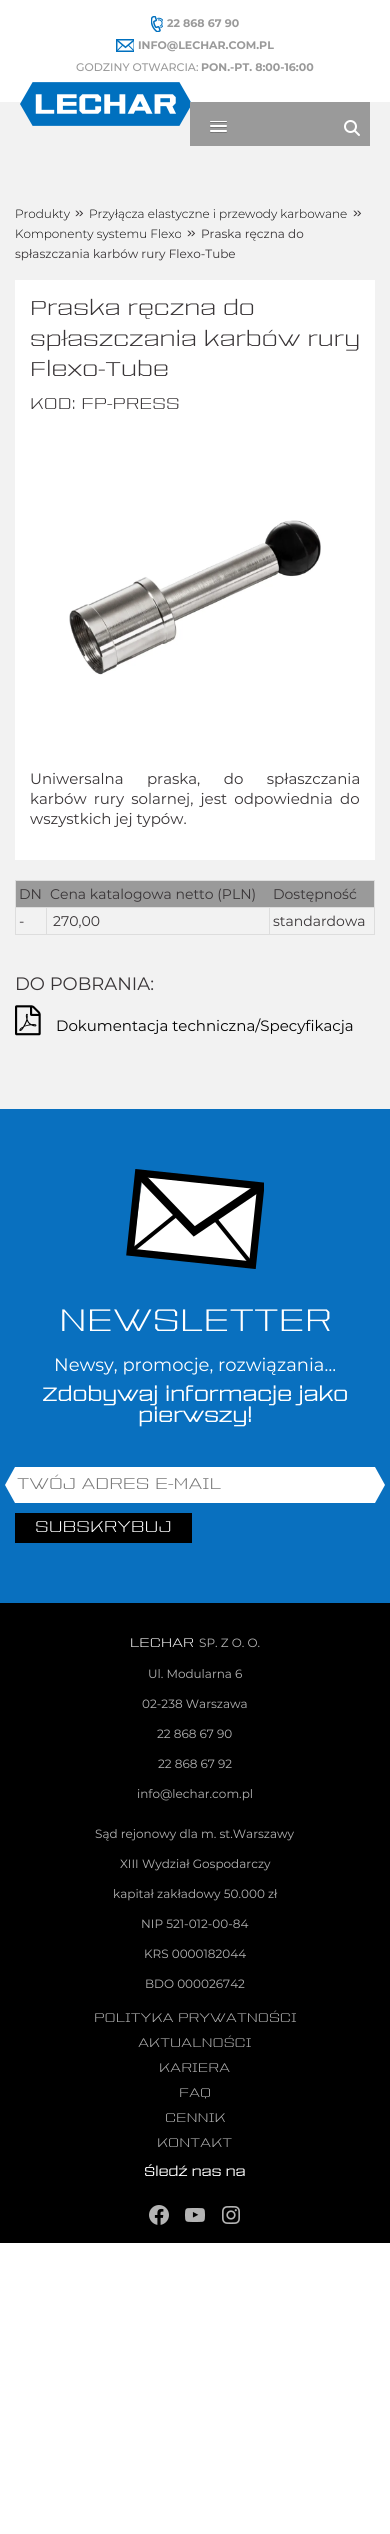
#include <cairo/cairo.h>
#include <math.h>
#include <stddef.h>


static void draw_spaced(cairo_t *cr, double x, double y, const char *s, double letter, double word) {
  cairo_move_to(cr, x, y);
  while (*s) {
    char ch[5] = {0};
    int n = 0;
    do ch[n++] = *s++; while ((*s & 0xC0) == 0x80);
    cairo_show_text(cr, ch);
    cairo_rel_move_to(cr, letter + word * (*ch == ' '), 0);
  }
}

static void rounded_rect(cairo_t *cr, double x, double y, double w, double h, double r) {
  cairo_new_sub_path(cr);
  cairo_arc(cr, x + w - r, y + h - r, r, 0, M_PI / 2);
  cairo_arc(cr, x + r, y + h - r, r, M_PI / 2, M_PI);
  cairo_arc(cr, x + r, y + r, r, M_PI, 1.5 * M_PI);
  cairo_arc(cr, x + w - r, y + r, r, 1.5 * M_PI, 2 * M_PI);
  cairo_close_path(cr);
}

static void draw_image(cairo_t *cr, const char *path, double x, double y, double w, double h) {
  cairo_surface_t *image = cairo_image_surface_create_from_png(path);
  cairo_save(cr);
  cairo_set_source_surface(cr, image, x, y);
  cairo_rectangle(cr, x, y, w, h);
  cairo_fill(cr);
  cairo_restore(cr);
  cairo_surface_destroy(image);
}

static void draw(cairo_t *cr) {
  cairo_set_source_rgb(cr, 1, 1, 1);
  cairo_paint(cr);
  cairo_set_source_rgb(cr, 242 / 255.0, 242 / 255.0, 242 / 255.0);
  cairo_rectangle(cr, 0, 102, 390, 1007);
  cairo_fill(cr);
  draw_image(cr, "images/1.png", 151, 16, 12, 16);
  draw_image(cr, "images/2.png", 116, 39, 18, 13);
  draw_image(cr, "images/3.png", 20, 82, 171, 44);
  cairo_set_source_rgb(cr, 154 / 255.0, 154 / 255.0, 154 / 255.0);
  cairo_rectangle(cr, 190, 102, 180, 44);
  cairo_fill(cr);
  cairo_set_source_rgb(cr, 116 / 255.0, 116 / 255.0, 116 / 255.0);
  rounded_rect(cr, 210, 122, 17, 1, 0.5);
  cairo_fill(cr);
  cairo_set_source_rgb(cr, 1, 1, 1);
  rounded_rect(cr, 210, 121, 17, 1, 0.5);
  cairo_fill(cr);
  cairo_set_source_rgb(cr, 116 / 255.0, 116 / 255.0, 116 / 255.0);
  cairo_new_path(cr);
  cairo_move_to(cr, 210, 126.5);
  cairo_curve_to(cr, 209, 128.5, 213.5, 128, 213.5, 128);
  cairo_line_to(cr, 223.5, 128);
  cairo_curve_to(cr, 223.5, 128, 228, 128.5, 227, 126.5);
  cairo_curve_to(cr, 226, 127.5, 220, 127, 218.5, 127);
  cairo_curve_to(cr, 217, 127, 211, 127.5, 210, 126.5);
  cairo_close_path(cr);
  cairo_fill(cr);
  cairo_set_source_rgb(cr, 1, 1, 1);
  rounded_rect(cr, 210, 125, 17, 2, 1);
  cairo_fill(cr);
  cairo_set_source_rgb(cr, 116 / 255.0, 116 / 255.0, 116 / 255.0);
  cairo_new_path(cr);
  cairo_move_to(cr, 210, 131.5);
  cairo_curve_to(cr, 209, 133.5, 213.5, 133, 213.5, 133);
  cairo_line_to(cr, 223.5, 133);
  cairo_curve_to(cr, 223.5, 133, 228, 133.5, 227, 131.5);
  cairo_curve_to(cr, 226, 132.5, 220, 132, 218.5, 132);
  cairo_curve_to(cr, 217, 132, 211, 132.5, 210, 131.5);
  cairo_close_path(cr);
  cairo_fill(cr);
  cairo_set_source_rgb(cr, 1, 1, 1);
  rounded_rect(cr, 210, 130, 17, 2, 1);
  cairo_fill(cr);
  draw_image(cr, "images/4.png", 344, 120, 16, 16);
  cairo_rectangle(cr, 15, 280, 360, 580);
  cairo_fill(cr);
  draw_image(cr, "images/5.png", 69, 520, 252, 155);
  cairo_set_source_rgb(cr, 154 / 255.0, 154 / 255.0, 154 / 255.0);
  cairo_rectangle(cr, 16, 881, 358, 26);
  cairo_fill(cr);
  cairo_set_source_rgb(cr, 221 / 255.0, 221 / 255.0, 221 / 255.0);
  cairo_rectangle(cr, 15, 880, 360, 1);
  cairo_fill(cr);
  cairo_rectangle(cr, 374, 907, 1, 28);
  cairo_fill(cr);
  cairo_rectangle(cr, 374, 880, 1, 28);
  cairo_fill(cr);
  cairo_rectangle(cr, 15, 934, 360, 1);
  cairo_fill(cr);
  cairo_rectangle(cr, 15, 907, 1, 28);
  cairo_fill(cr);
  cairo_rectangle(cr, 15, 880, 1, 28);
  cairo_fill(cr);
  cairo_rectangle(cr, 269, 907, 106, 1);
  cairo_fill(cr);
  cairo_rectangle(cr, 269, 907, 1, 28);
  cairo_fill(cr);
  cairo_rectangle(cr, 46, 907, 224, 1);
  cairo_fill(cr);
  cairo_rectangle(cr, 46, 907, 1, 28);
  cairo_fill(cr);
  cairo_rectangle(cr, 15, 907, 32, 1);
  cairo_fill(cr);
  draw_image(cr, "images/6.png", 15, 1005, 26, 31);
  cairo_set_source_rgb(cr, 9 / 255.0, 112 / 255.0, 191 / 255.0);
  cairo_rectangle(cr, 0, 1109, 390, 494);
  cairo_fill(cr);
  draw_image(cr, "images/7.png", 126, 1169, 138, 100);
  cairo_set_source_rgb(cr, 1, 1, 1);
  cairo_rectangle(cr, 15, 1467, 360, 36);
  cairo_fill(cr);
  cairo_new_path(cr);
  cairo_move_to(cr, 15, 1467);
  cairo_line_to(cr, 15, 1503);
  cairo_line_to(cr, 5, 1485);
  cairo_close_path(cr);
  cairo_fill(cr);
  cairo_new_path(cr);
  cairo_move_to(cr, 375, 1503);
  cairo_line_to(cr, 375, 1467);
  cairo_line_to(cr, 385, 1485);
  cairo_close_path(cr);
  cairo_fill(cr);
  cairo_set_source_rgb(cr, 0, 0, 0);
  cairo_rectangle(cr, 15, 1513, 177, 30);
  cairo_fill(cr);
  cairo_rectangle(cr, 0, 1603, 390, 640);
  cairo_fill(cr);
  draw_image(cr, "images/8.png", 149, 2205, 20, 20);
  draw_image(cr, "images/9.png", 185, 2208, 20, 14);
  draw_image(cr, "images/10.png", 222, 2206, 18, 18);
  cairo_select_font_face(cr, "Montserrat", CAIRO_FONT_SLANT_NORMAL, CAIRO_FONT_WEIGHT_BOLD);
  cairo_set_font_size(cr, 11);
  cairo_set_source_rgb(cr, 154 / 255.0, 154 / 255.0, 154 / 255.0);
  cairo_move_to(cr, 167, 27);
  cairo_show_text(cr, "22 868 67 90");
  cairo_move_to(cr, 138, 49);
  cairo_show_text(cr, "INFO@LECHAR.COM.PL");
  cairo_select_font_face(cr, "Montserrat Medium", CAIRO_FONT_SLANT_NORMAL, CAIRO_FONT_WEIGHT_NORMAL);
  cairo_move_to(cr, 76, 71);
  cairo_show_text(cr, "GODZINY OTWARCIA:");
  cairo_select_font_face(cr, "Montserrat", CAIRO_FONT_SLANT_NORMAL, CAIRO_FONT_WEIGHT_BOLD);
  cairo_move_to(cr, 201, 71);
  cairo_show_text(cr, "PON.-PT. 8:00-16:00");
  cairo_select_font_face(cr, "Montserrat Light", CAIRO_FONT_SLANT_NORMAL, CAIRO_FONT_WEIGHT_NORMAL);
  cairo_set_font_size(cr, 12);
  cairo_set_source_rgb(cr, 0, 0, 0);
  cairo_move_to(cr, 15, 218);
  cairo_show_text(cr, "Produkty");
  cairo_select_font_face(cr, "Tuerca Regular", CAIRO_FONT_SLANT_NORMAL, CAIRO_FONT_WEIGHT_NORMAL);
  cairo_set_font_size(cr, 15);
  cairo_set_source_rgb(cr, 56 / 255.0, 52 / 255.0, 54 / 255.0);
  cairo_move_to(cr, 75, 218);
  cairo_show_text(cr, "»");
  cairo_select_font_face(cr, "Montserrat Light", CAIRO_FONT_SLANT_NORMAL, CAIRO_FONT_WEIGHT_NORMAL);
  cairo_set_font_size(cr, 12);
  cairo_set_source_rgb(cr, 0, 0, 0);
  cairo_move_to(cr, 89, 218);
  cairo_show_text(cr, "Przyłącza elastyczne i przewody karbowane");
  cairo_select_font_face(cr, "Tuerca Regular", CAIRO_FONT_SLANT_NORMAL, CAIRO_FONT_WEIGHT_NORMAL);
  cairo_set_font_size(cr, 15);
  cairo_set_source_rgb(cr, 56 / 255.0, 52 / 255.0, 54 / 255.0);
  cairo_move_to(cr, 353, 218);
  cairo_show_text(cr, "»");
  cairo_select_font_face(cr, "Montserrat Light", CAIRO_FONT_SLANT_NORMAL, CAIRO_FONT_WEIGHT_NORMAL);
  cairo_set_font_size(cr, 12);
  cairo_set_source_rgb(cr, 0, 0, 0);
  cairo_move_to(cr, 15, 238);
  cairo_show_text(cr, "Komponenty systemu Flexo");
  cairo_select_font_face(cr, "Tuerca Regular", CAIRO_FONT_SLANT_NORMAL, CAIRO_FONT_WEIGHT_NORMAL);
  cairo_set_font_size(cr, 15);
  cairo_set_source_rgb(cr, 56 / 255.0, 52 / 255.0, 54 / 255.0);
  cairo_move_to(cr, 187, 238);
  cairo_show_text(cr, "»");
  cairo_select_font_face(cr, "Montserrat", CAIRO_FONT_SLANT_NORMAL, CAIRO_FONT_WEIGHT_NORMAL);
  cairo_set_font_size(cr, 12);
  cairo_move_to(cr, 201, 238);
  cairo_show_text(cr, "Praska ręczna do");
  cairo_move_to(cr, 15, 258);
  cairo_show_text(cr, "spłaszczania karbów rury Flexo-Tube");
  cairo_select_font_face(cr, "Tuerca Regular", CAIRO_FONT_SLANT_NORMAL, CAIRO_FONT_WEIGHT_NORMAL);
  cairo_set_font_size(cr, 19.25);
  cairo_move_to(cr, 30, 315);
  cairo_show_text(cr, "Praska ręczna do");
  cairo_move_to(cr, 30, 346);
  cairo_show_text(cr, "spłaszczania karbów rury");
  cairo_move_to(cr, 30, 376);
  cairo_show_text(cr, "Flexo-Tube");
  cairo_set_font_size(cr, 15);
  cairo_move_to(cr, 30, 409);
  cairo_show_text(cr, "KOD: FP-PRESS");
  cairo_select_font_face(cr, "Montserrat", CAIRO_FONT_SLANT_NORMAL, CAIRO_FONT_WEIGHT_NORMAL);
  draw_spaced(cr, 30, 784, "Uniwersalna praska, do spłaszczania", 0, 19.5);
  draw_spaced(cr, 30, 804, "karbów rury solarnej, jest odpowiednia do", 0, 3.25);
  cairo_move_to(cr, 30, 824);
  cairo_show_text(cr, "wszystkich jej typów.");
  cairo_set_font_size(cr, 14);
  cairo_move_to(cr, 19, 899);
  cairo_show_text(cr, "DN");
  cairo_move_to(cr, 50, 899);
  cairo_show_text(cr, "Cena katalogowa netto (PLN)");
  cairo_move_to(cr, 273, 899);
  cairo_show_text(cr, "Dostępność");
  cairo_move_to(cr, 19, 926);
  cairo_show_text(cr, "-");
  cairo_move_to(cr, 53, 926);
  cairo_show_text(cr, "270,00");
  cairo_move_to(cr, 273, 926);
  cairo_show_text(cr, "standardowa");
  cairo_set_font_size(cr, 18);
  cairo_move_to(cr, 15, 990);
  cairo_show_text(cr, "DO POBRANIA:");
  cairo_set_font_size(cr, 15);
  cairo_set_source_rgb(cr, 0, 0, 0);
  cairo_move_to(cr, 56, 1031);
  cairo_show_text(cr, "Dokumentacja techniczna/Specyfikacja");
  cairo_select_font_face(cr, "Tuerca Regular", CAIRO_FONT_SLANT_NORMAL, CAIRO_FONT_WEIGHT_NORMAL);
  cairo_set_font_size(cr, 30);
  cairo_set_source_rgb(cr, 1, 1, 1);
  cairo_move_to(cr, 59, 1331);
  cairo_show_text(cr, "NEWSLETTER");
  cairo_select_font_face(cr, "Montserrat", CAIRO_FONT_SLANT_NORMAL, CAIRO_FONT_WEIGHT_NORMAL);
  cairo_set_font_size(cr, 18);
  cairo_move_to(cr, 54, 1371);
  cairo_show_text(cr, "Newsy, promocje, rozwiązania…");
  cairo_select_font_face(cr, "Tuerca Regular", CAIRO_FONT_SLANT_NORMAL, CAIRO_FONT_WEIGHT_BOLD);
  cairo_move_to(cr, 42, 1401);
  cairo_show_text(cr, "Zdobywaj informacje jako");
  cairo_move_to(cr, 138, 1422);
  cairo_show_text(cr, "pierwszy!");
  cairo_select_font_face(cr, "Tuerca Regular", CAIRO_FONT_SLANT_NORMAL, CAIRO_FONT_WEIGHT_NORMAL);
  cairo_set_font_size(cr, 15);
  cairo_set_source_rgb(cr, 117 / 255.0, 117 / 255.0, 117 / 255.0);
  cairo_move_to(cr, 17, 1489);
  cairo_show_text(cr, "TWÓJ ADRES E-MAIL");
  cairo_set_source_rgb(cr, 1, 1, 1);
  cairo_move_to(cr, 35, 1532);
  cairo_show_text(cr, "SUBSKRYBUJ");
  cairo_set_font_size(cr, 12);
  cairo_move_to(cr, 130, 1647);
  cairo_show_text(cr, "LECHAR");
  cairo_select_font_face(cr, "Montserrat", CAIRO_FONT_SLANT_NORMAL, CAIRO_FONT_WEIGHT_NORMAL);
  cairo_set_source_rgb(cr, 180 / 255.0, 180 / 255.0, 180 / 255.0);
  cairo_move_to(cr, 199, 1647);
  cairo_show_text(cr, "SP. Z O. O.");
  cairo_move_to(cr, 148, 1678);
  cairo_show_text(cr, "Ul. Modularna 6");
  cairo_move_to(cr, 142, 1708);
  cairo_show_text(cr, "02-238 Warszawa");
  cairo_move_to(cr, 157, 1738);
  cairo_show_text(cr, "22 868 67 90");
  cairo_move_to(cr, 158, 1768);
  cairo_show_text(cr, "22 868 67 92");
  cairo_move_to(cr, 137, 1798);
  cairo_show_text(cr, "info@lechar.com.pl");
  cairo_move_to(cr, 95, 1838);
  cairo_show_text(cr, "Sąd rejonowy dla m. st.Warszawy");
  cairo_move_to(cr, 120, 1868);
  cairo_show_text(cr, "XIII Wydział Gospodarczy");
  cairo_move_to(cr, 113, 1898);
  cairo_show_text(cr, "kapitał zakładowy 50.000 zł");
  cairo_move_to(cr, 141, 1928);
  cairo_show_text(cr, "NIP 521-012-00-84");
  cairo_move_to(cr, 144, 1958);
  cairo_show_text(cr, "KRS 0000182044");
  cairo_move_to(cr, 145, 1988);
  cairo_show_text(cr, "BDO 000026742");
  cairo_select_font_face(cr, "Tuerca Regular", CAIRO_FONT_SLANT_NORMAL, CAIRO_FONT_WEIGHT_NORMAL);
  cairo_move_to(cr, 94, 2022);
  cairo_show_text(cr, "POLITYKA PRYWATNOŚCI");
  cairo_move_to(cr, 138, 2047);
  cairo_show_text(cr, "AKTUALNOŚCI");
  cairo_move_to(cr, 159, 2072);
  cairo_show_text(cr, "KARIERA");
  cairo_move_to(cr, 179, 2097);
  cairo_show_text(cr, "FAQ");
  cairo_move_to(cr, 165, 2122);
  cairo_show_text(cr, "CENNIK");
  cairo_move_to(cr, 157, 2147);
  cairo_show_text(cr, "KONTAKT");
  cairo_select_font_face(cr, "Tuerca Regular", CAIRO_FONT_SLANT_NORMAL, CAIRO_FONT_WEIGHT_BOLD);
  cairo_set_source_rgb(cr, 1, 1, 1);
  cairo_move_to(cr, 144, 2176);
  cairo_show_text(cr, "Śledź nas na");
}

int main(void) {
  cairo_surface_t *surface = cairo_image_surface_create(CAIRO_FORMAT_RGB24, 390, 2534);
  cairo_t *cr = cairo_create(surface);
  cairo_font_options_t *options = cairo_font_options_create();
  cairo_font_options_set_hint_metrics(options, CAIRO_HINT_METRICS_OFF);
  cairo_font_options_set_hint_style(options, CAIRO_HINT_STYLE_NONE);
  cairo_set_font_options(cr, options);
  cairo_set_miter_limit(cr, 4);
  draw(cr);
  cairo_surface_write_to_png(surface, "out.png");
  cairo_font_options_destroy(options);
  cairo_destroy(cr);
  cairo_surface_destroy(surface);
  return 0;
}
